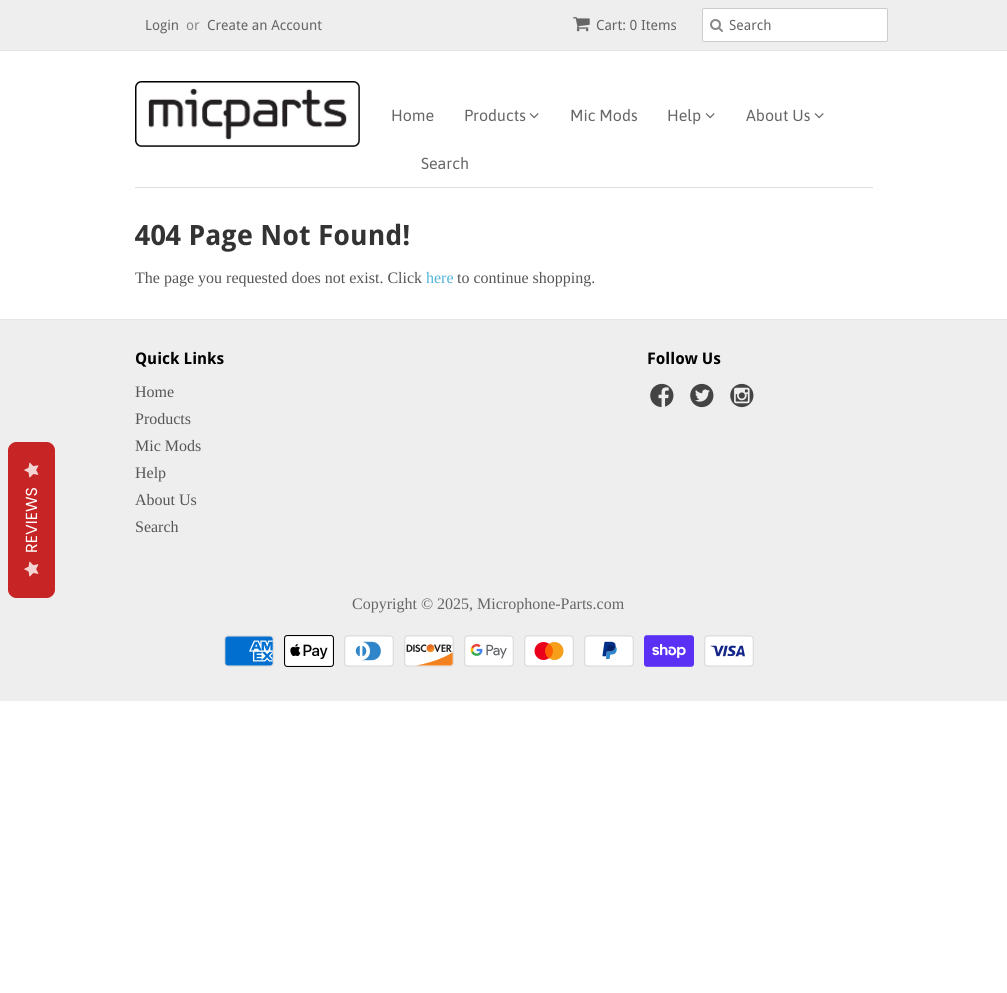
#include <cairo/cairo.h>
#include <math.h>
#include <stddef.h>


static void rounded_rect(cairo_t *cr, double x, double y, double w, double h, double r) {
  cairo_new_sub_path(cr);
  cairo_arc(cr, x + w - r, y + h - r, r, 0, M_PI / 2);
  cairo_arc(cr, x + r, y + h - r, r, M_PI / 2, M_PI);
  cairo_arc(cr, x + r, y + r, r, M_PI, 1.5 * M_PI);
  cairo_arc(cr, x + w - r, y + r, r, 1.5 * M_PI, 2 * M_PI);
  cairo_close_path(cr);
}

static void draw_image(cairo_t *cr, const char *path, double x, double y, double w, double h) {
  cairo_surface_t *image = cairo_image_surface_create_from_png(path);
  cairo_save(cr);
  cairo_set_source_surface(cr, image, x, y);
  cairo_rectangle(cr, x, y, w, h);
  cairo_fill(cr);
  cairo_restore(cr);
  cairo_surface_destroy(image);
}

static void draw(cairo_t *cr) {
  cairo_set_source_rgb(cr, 1, 1, 1);
  cairo_paint(cr);
  cairo_set_source_rgb(cr, 238 / 255.0, 238 / 255.0, 238 / 255.0);
  cairo_rectangle(cr, 0, 0, 1007, 50);
  cairo_fill(cr);
  cairo_set_source_rgb(cr, 229 / 255.0, 229 / 255.0, 229 / 255.0);
  cairo_rectangle(cr, 0, 50, 1007, 1);
  cairo_fill(cr);
  draw_image(cr, "images/1.png", 573, 17, 17, 15);
  cairo_set_source_rgb(cr, 1, 1, 1);
  rounded_rect(cr, 702.5, 8.5, 185, 33, 1.5);
  cairo_fill_preserve(cr);
  cairo_set_source_rgb(cr, 204 / 255.0, 204 / 255.0, 204 / 255.0);
  cairo_set_line_width(cr, 1);
  cairo_stroke(cr);
  draw_image(cr, "images/2.png", 710, 19, 13, 13);
  cairo_set_source_rgb(cr, 221 / 255.0, 221 / 255.0, 221 / 255.0);
  cairo_rectangle(cr, 135, 187, 738, 1);
  cairo_fill(cr);
  draw_image(cr, "images/3.png", 135, 81, 225, 66);
  draw_image(cr, "images/4.png", 529, 113, 10, 6);
  draw_image(cr, "images/4.png", 705, 113, 10, 6);
  draw_image(cr, "images/4.png", 814, 113, 10, 6);
  cairo_set_source_rgb(cr, 238 / 255.0, 238 / 255.0, 238 / 255.0);
  cairo_rectangle(cr, 0, 320, 1007, 381);
  cairo_fill(cr);
  cairo_set_source_rgb(cr, 199 / 255.0, 37 / 255.0, 37 / 255.0);
  cairo_new_path(cr);
  cairo_move_to(cr, 8, 590);
  cairo_line_to(cr, 8, 450);
  cairo_curve_to(cr, 8, 446, 12, 442, 16, 442);
  cairo_line_to(cr, 47, 442);
  cairo_curve_to(cr, 51, 442, 55, 446, 55, 450);
  cairo_line_to(cr, 55, 590);
  cairo_curve_to(cr, 55, 594, 51, 598, 47, 598);
  cairo_line_to(cr, 16, 598);
  cairo_curve_to(cr, 12, 598, 8, 594, 8, 590);
  cairo_close_path(cr);
  cairo_fill(cr);
  draw_image(cr, "images/5.png", 24, 462, 15, 16);
  draw_image(cr, "images/5.png", 24, 561, 15, 16);
  cairo_set_source_rgb(cr, 229 / 255.0, 229 / 255.0, 229 / 255.0);
  cairo_rectangle(cr, 0, 319, 1007, 1);
  cairo_fill(cr);
  draw_image(cr, "images/6.png", 650, 383, 24, 25);
  draw_image(cr, "images/7.png", 690, 383, 24, 25);
  draw_image(cr, "images/8.png", 730, 383, 24, 25);
  draw_image(cr, "images/9.png", 224, 635, 50, 32);
  draw_image(cr, "images/10.png", 284, 635, 50, 32);
  draw_image(cr, "images/11.png", 344, 635, 50, 32);
  draw_image(cr, "images/12.png", 404, 635, 50, 32);
  draw_image(cr, "images/13.png", 464, 635, 50, 32);
  draw_image(cr, "images/14.png", 524, 635, 50, 32);
  draw_image(cr, "images/15.png", 584, 635, 50, 32);
  draw_image(cr, "images/16.png", 644, 635, 50, 32);
  draw_image(cr, "images/17.png", 704, 635, 50, 32);
  cairo_select_font_face(cr, "Droid Sans", CAIRO_FONT_SLANT_NORMAL, CAIRO_FONT_WEIGHT_NORMAL);
  cairo_set_font_size(cr, 14);
  cairo_set_source_rgb(cr, 102 / 255.0, 102 / 255.0, 102 / 255.0);
  cairo_move_to(cr, 145, 30);
  cairo_show_text(cr, "Login");
  cairo_set_source_rgb(cr, 136 / 255.0, 136 / 255.0, 136 / 255.0);
  cairo_move_to(cr, 186, 30);
  cairo_show_text(cr, "or");
  cairo_set_source_rgb(cr, 102 / 255.0, 102 / 255.0, 102 / 255.0);
  cairo_move_to(cr, 207, 30);
  cairo_show_text(cr, "Create an Account");
  cairo_move_to(cr, 596, 30);
  cairo_show_text(cr, "Cart: 0 Items");
  cairo_move_to(cr, 729, 30);
  cairo_show_text(cr, "Search");
  cairo_select_font_face(cr, "Asap", CAIRO_FONT_SLANT_NORMAL, CAIRO_FONT_WEIGHT_NORMAL);
  cairo_set_font_size(cr, 16);
  cairo_move_to(cr, 391, 121);
  cairo_show_text(cr, "Home");
  cairo_move_to(cr, 464, 121);
  cairo_show_text(cr, "Products");
  cairo_move_to(cr, 570, 121);
  cairo_show_text(cr, "Mic Mods");
  cairo_move_to(cr, 667, 121);
  cairo_show_text(cr, "Help");
  cairo_move_to(cr, 746, 121);
  cairo_show_text(cr, "About Us");
  cairo_move_to(cr, 421, 169);
  cairo_show_text(cr, "Search");
  cairo_select_font_face(cr, "Droid Sans", CAIRO_FONT_SLANT_NORMAL, CAIRO_FONT_WEIGHT_BOLD);
  cairo_set_font_size(cr, 28);
  cairo_set_source_rgb(cr, 51 / 255.0, 51 / 255.0, 51 / 255.0);
  cairo_move_to(cr, 135, 245);
  cairo_show_text(cr, "404 Page Not Found!");
  cairo_select_font_face(cr, "Liberation Serif", CAIRO_FONT_SLANT_NORMAL, CAIRO_FONT_WEIGHT_NORMAL);
  cairo_set_font_size(cr, 16);
  cairo_set_source_rgb(cr, 85 / 255.0, 85 / 255.0, 85 / 255.0);
  cairo_move_to(cr, 135, 283);
  cairo_show_text(cr, "The page you requested does not exist. Click");
  cairo_set_source_rgb(cr, 80 / 255.0, 179 / 255.0, 218 / 255.0);
  cairo_move_to(cr, 426, 283);
  cairo_show_text(cr, "here");
  cairo_set_source_rgb(cr, 85 / 255.0, 85 / 255.0, 85 / 255.0);
  cairo_move_to(cr, 457, 283);
  cairo_show_text(cr, "to continue shopping.");
  cairo_select_font_face(cr, "Poppins", CAIRO_FONT_SLANT_NORMAL, CAIRO_FONT_WEIGHT_NORMAL);
  cairo_set_source_rgb(cr, 1, 1, 1);
  cairo_save(cr);
  cairo_translate(cr, 37, 553);
  cairo_rotate(cr, -90 * M_PI / 180);
  cairo_move_to(cr, 0, 0);
  cairo_show_text(cr, "REVIEWS");
  cairo_restore(cr);
  cairo_select_font_face(cr, "Droid Sans", CAIRO_FONT_SLANT_NORMAL, CAIRO_FONT_WEIGHT_BOLD);
  cairo_set_source_rgb(cr, 0, 0, 0);
  cairo_move_to(cr, 135, 364);
  cairo_show_text(cr, "Quick Links");
  cairo_select_font_face(cr, "Liberation Serif", CAIRO_FONT_SLANT_NORMAL, CAIRO_FONT_WEIGHT_NORMAL);
  cairo_set_source_rgb(cr, 85 / 255.0, 85 / 255.0, 85 / 255.0);
  cairo_move_to(cr, 135, 397);
  cairo_show_text(cr, "Home");
  cairo_move_to(cr, 135, 424);
  cairo_show_text(cr, "Products");
  cairo_move_to(cr, 135, 451);
  cairo_show_text(cr, "Mic Mods");
  cairo_move_to(cr, 135, 478);
  cairo_show_text(cr, "Help");
  cairo_move_to(cr, 135, 505);
  cairo_show_text(cr, "About Us");
  cairo_move_to(cr, 135, 532);
  cairo_show_text(cr, "Search");
  cairo_select_font_face(cr, "Droid Sans", CAIRO_FONT_SLANT_NORMAL, CAIRO_FONT_WEIGHT_BOLD);
  cairo_set_source_rgb(cr, 0, 0, 0);
  cairo_move_to(cr, 647, 364);
  cairo_show_text(cr, "Follow Us");
  cairo_select_font_face(cr, "Liberation Serif", CAIRO_FONT_SLANT_NORMAL, CAIRO_FONT_WEIGHT_NORMAL);
  cairo_set_source_rgb(cr, 102 / 255.0, 102 / 255.0, 102 / 255.0);
  cairo_move_to(cr, 352, 609);
  cairo_show_text(cr, "Copyright © 2025, Microphone-Parts.com");
}

int main(void) {
  cairo_surface_t *surface = cairo_image_surface_create(CAIRO_FORMAT_RGB24, 1007, 993);
  cairo_t *cr = cairo_create(surface);
  cairo_font_options_t *options = cairo_font_options_create();
  cairo_font_options_set_hint_metrics(options, CAIRO_HINT_METRICS_OFF);
  cairo_font_options_set_hint_style(options, CAIRO_HINT_STYLE_NONE);
  cairo_set_font_options(cr, options);
  cairo_set_miter_limit(cr, 4);
  draw(cr);
  cairo_surface_write_to_png(surface, "out.png");
  cairo_font_options_destroy(options);
  cairo_destroy(cr);
  cairo_surface_destroy(surface);
  return 0;
}
